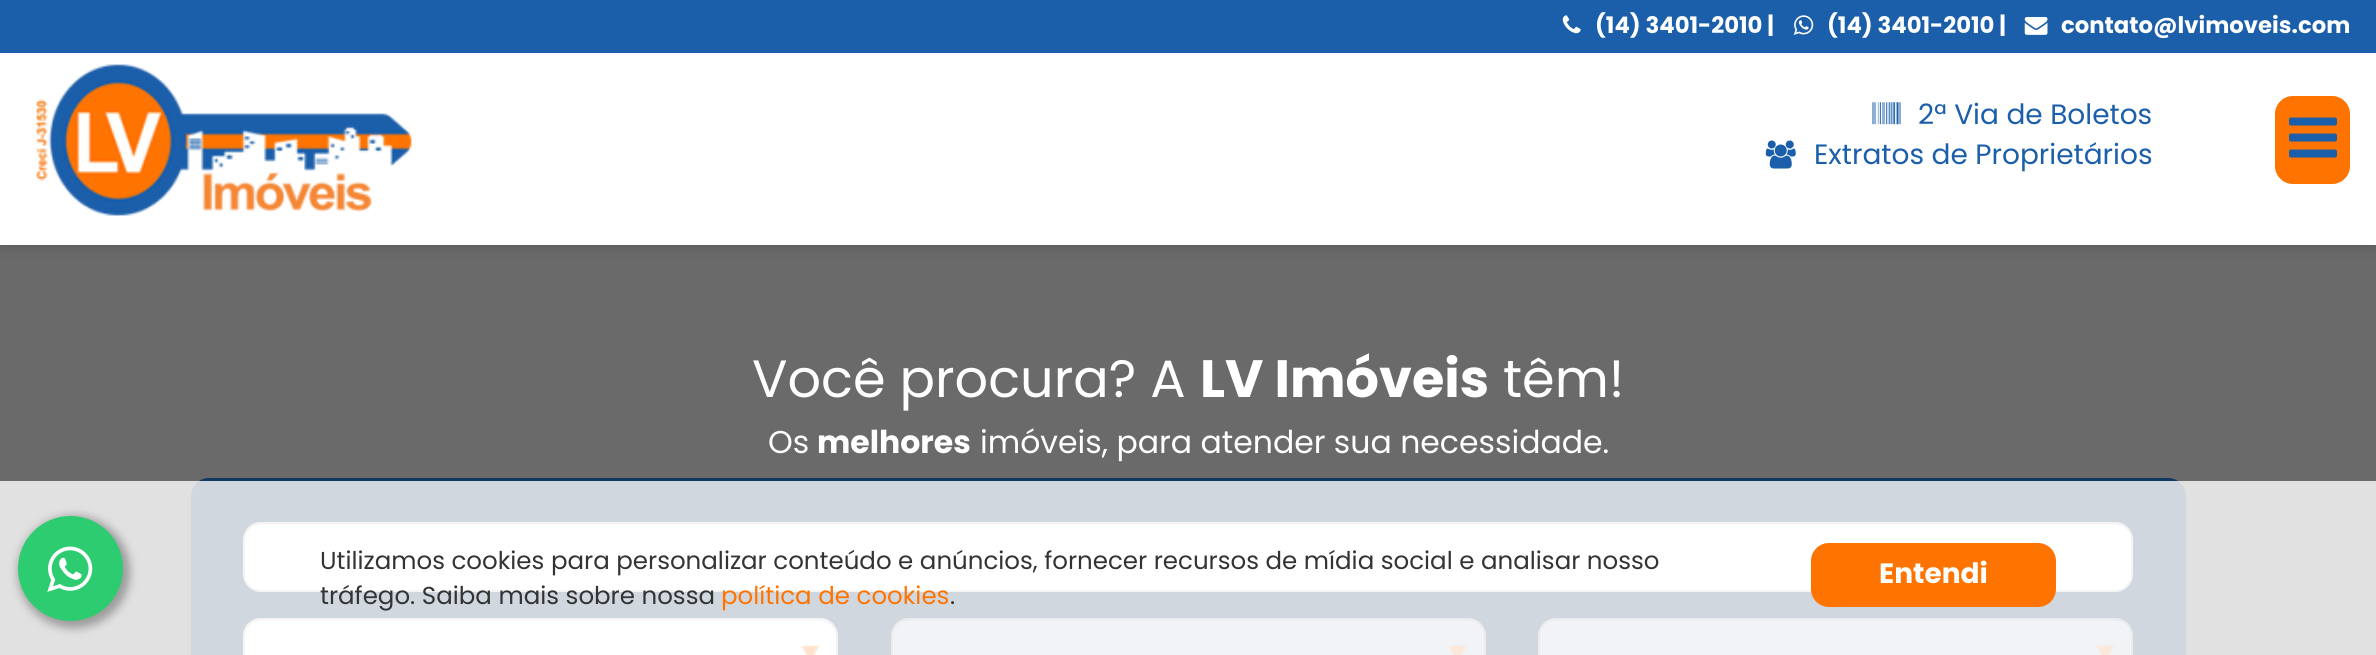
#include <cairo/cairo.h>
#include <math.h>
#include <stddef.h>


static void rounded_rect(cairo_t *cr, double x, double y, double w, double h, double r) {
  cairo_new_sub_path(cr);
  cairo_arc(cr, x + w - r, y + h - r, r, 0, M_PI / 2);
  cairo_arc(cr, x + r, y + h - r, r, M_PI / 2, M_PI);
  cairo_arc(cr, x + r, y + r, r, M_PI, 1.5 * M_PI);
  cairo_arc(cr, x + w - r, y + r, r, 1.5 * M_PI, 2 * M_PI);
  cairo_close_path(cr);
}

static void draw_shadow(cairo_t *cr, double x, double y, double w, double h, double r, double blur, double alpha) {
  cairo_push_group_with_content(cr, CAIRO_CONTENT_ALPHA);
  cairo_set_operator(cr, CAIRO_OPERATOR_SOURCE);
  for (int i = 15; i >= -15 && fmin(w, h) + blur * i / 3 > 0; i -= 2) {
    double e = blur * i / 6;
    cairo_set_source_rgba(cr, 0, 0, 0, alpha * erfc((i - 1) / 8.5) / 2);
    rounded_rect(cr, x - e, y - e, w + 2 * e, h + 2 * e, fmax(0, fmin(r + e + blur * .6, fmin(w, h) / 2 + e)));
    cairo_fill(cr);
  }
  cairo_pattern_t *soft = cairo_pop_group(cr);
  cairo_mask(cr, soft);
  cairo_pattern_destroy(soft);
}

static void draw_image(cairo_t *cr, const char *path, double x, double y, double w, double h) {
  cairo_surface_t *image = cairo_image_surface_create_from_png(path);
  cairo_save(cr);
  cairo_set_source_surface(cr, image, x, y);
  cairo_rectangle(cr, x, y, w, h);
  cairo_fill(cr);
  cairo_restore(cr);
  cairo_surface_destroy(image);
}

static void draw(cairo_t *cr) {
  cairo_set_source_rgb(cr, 106 / 255.0, 106 / 255.0, 106 / 255.0);
  cairo_paint(cr);
  cairo_set_source_rgb(cr, 0, 0, 0);
  draw_shadow(cr, 0, 2, 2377, 245, 0, 8, 0.15);
  cairo_set_source_rgb(cr, 1, 1, 1);
  cairo_rectangle(cr, 0, 53, 2376, 192);
  cairo_fill(cr);
  cairo_set_source_rgb(cr, 27 / 255.0, 94 / 255.0, 170 / 255.0);
  cairo_rectangle(cr, 0, 0, 2376, 53);
  cairo_fill(cr);
  draw_image(cr, "images/1.png", 1562, 15, 19, 19);
  draw_image(cr, "images/2.png", 1793, 15, 21, 20);
  draw_image(cr, "images/3.png", 2024, 17, 24, 18);
  draw_image(cr, "images/4.png", 36, 64, 376, 152);
  draw_image(cr, "images/5.png", 1872, 102, 29, 23);
  draw_image(cr, "images/6.png", 1765, 140, 31, 29);
  cairo_set_source_rgb(cr, 1, 116 / 255.0, 0);
  rounded_rect(cr, 2275, 96, 75, 88, 18);
  cairo_fill(cr);
  draw_image(cr, "images/7.png", 2289, 117, 48, 41);
  cairo_set_source_rgb(cr, 18 / 255.0, 56 / 255.0, 97 / 255.0);
  rounded_rect(cr, 191, 478, 1995, 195, 18);
  cairo_fill(cr);
  cairo_set_source_rgb(cr, 1, 1, 1);
  rounded_rect(cr, 243, 522, 1890, 70, 18);
  cairo_fill(cr);
  cairo_set_source_rgb(cr, 236 / 255.0, 236 / 255.0, 236 / 255.0);
  cairo_new_path(cr);
  cairo_move_to(cr, 261, 525);
  cairo_line_to(cr, 2116, 525);
  cairo_curve_to(cr, 2124, 525, 2132, 532, 2132, 541);
  cairo_line_to(cr, 2132, 539);
  cairo_curve_to(cr, 2132, 530, 2125, 523, 2116, 523);
  cairo_line_to(cr, 261, 523);
  cairo_curve_to(cr, 252, 523, 245, 530, 245, 539);
  cairo_line_to(cr, 245, 541);
  cairo_curve_to(cr, 245, 532, 252, 525, 261, 525);
  cairo_close_path(cr);
  cairo_fill(cr);
  rounded_rect(cr, 244, 523, 1888, 68, 17);
  cairo_set_source_rgba(cr, 0, 0, 0, 0.2);
  cairo_stroke(cr);
  cairo_set_source_rgb(cr, 1, 1, 1);
  rounded_rect(cr, 243, 618, 595, 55, 18);
  cairo_fill(cr);
  draw_image(cr, "images/8.png", 801, 645, 19, 10);
  cairo_set_source_rgb(cr, 236 / 255.0, 236 / 255.0, 236 / 255.0);
  cairo_new_path(cr);
  cairo_move_to(cr, 261, 621);
  cairo_line_to(cr, 821, 621);
  cairo_curve_to(cr, 829, 621, 836, 628, 836, 637);
  cairo_line_to(cr, 836, 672);
  cairo_curve_to(cr, 836, 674, 836, 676, 835, 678);
  cairo_curve_to(cr, 836, 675, 837, 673, 837, 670);
  cairo_line_to(cr, 837, 636);
  cairo_curve_to(cr, 837, 627, 830, 620, 821, 620);
  cairo_line_to(cr, 261, 620);
  cairo_curve_to(cr, 252, 620, 245, 627, 245, 636);
  cairo_line_to(cr, 245, 637);
  cairo_curve_to(cr, 245, 628, 252, 621, 261, 621);
  cairo_close_path(cr);
  cairo_fill(cr);
  rounded_rect(cr, 244, 619, 593, 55, 17);
  cairo_set_source_rgba(cr, 0, 0, 0, 0.2);
  cairo_stroke(cr);
  cairo_set_source_rgb(cr, 184 / 255.0, 195 / 255.0, 208 / 255.0);
  rounded_rect(cr, 891, 618, 595, 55, 18);
  cairo_fill(cr);
  draw_image(cr, "images/9.png", 1448, 645, 19, 10);
  cairo_set_source_rgb(cr, 171 / 255.0, 182 / 255.0, 195 / 255.0);
  cairo_new_path(cr);
  cairo_move_to(cr, 908, 621);
  cairo_line_to(cr, 1468, 621);
  cairo_curve_to(cr, 1477, 621, 1484, 628, 1484, 637);
  cairo_line_to(cr, 1484, 636);
  cairo_curve_to(cr, 1484, 627, 1477, 620, 1468, 620);
  cairo_line_to(cr, 909, 620);
  cairo_curve_to(cr, 904, 620, 899, 623, 896, 627);
  cairo_curve_to(cr, 899, 623, 904, 621, 908, 621);
  cairo_close_path(cr);
  cairo_fill(cr);
  rounded_rect(cr, 892, 619, 593, 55, 17);
  cairo_set_source_rgba(cr, 5 / 255.0, 17 / 255.0, 29 / 255.0, 0.2);
  cairo_stroke(cr);
  cairo_set_source_rgb(cr, 184 / 255.0, 195 / 255.0, 208 / 255.0);
  rounded_rect(cr, 1538, 618, 595, 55, 18);
  cairo_fill(cr);
  draw_image(cr, "images/10.png", 2096, 645, 19, 10);
  cairo_set_source_rgb(cr, 171 / 255.0, 182 / 255.0, 195 / 255.0);
  cairo_new_path(cr);
  cairo_move_to(cr, 1556, 621);
  cairo_line_to(cr, 2116, 621);
  cairo_curve_to(cr, 2124, 621, 2132, 628, 2132, 637);
  cairo_line_to(cr, 2132, 636);
  cairo_curve_to(cr, 2132, 627, 2125, 620, 2116, 620);
  cairo_line_to(cr, 1556, 620);
  cairo_curve_to(cr, 1547, 620, 1540, 627, 1540, 636);
  cairo_line_to(cr, 1540, 637);
  cairo_curve_to(cr, 1540, 628, 1547, 621, 1556, 621);
  cairo_close_path(cr);
  cairo_fill(cr);
  rounded_rect(cr, 1539, 619, 593, 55, 17);
  cairo_set_source_rgba(cr, 5 / 255.0, 17 / 255.0, 29 / 255.0, 0.2);
  cairo_stroke(cr);
  cairo_set_source_rgba(cr, 1, 1, 1, 0.8);
  cairo_rectangle(cr, 0, 481, 2376, 174);
  cairo_fill(cr);
  cairo_set_source_rgb(cr, 85 / 255.0, 85 / 255.0, 85 / 255.0);
  draw_shadow(cr, 18, 516, 112, 112, 56, 4.5, 0.5);
  cairo_set_source_rgb(cr, 46 / 255.0, 204 / 255.0, 113 / 255.0);
  cairo_arc(cr, 70.5, 568.5, 52.5, 0, 2 * M_PI);
  cairo_fill(cr);
  draw_image(cr, "images/11.png", 47, 546, 46, 46);
  cairo_set_source_rgb(cr, 1, 116 / 255.0, 0);
  rounded_rect(cr, 1811, 543, 245, 64, 18);
  cairo_fill(cr);
  cairo_select_font_face(cr, "Poppins", CAIRO_FONT_SLANT_NORMAL, CAIRO_FONT_WEIGHT_BOLD);
  cairo_set_font_size(cr, 22.75);
  cairo_set_source_rgb(cr, 1, 1, 1);
  cairo_move_to(cr, 1595, 33);
  cairo_show_text(cr, "(14) 3401-2010 |");
  cairo_move_to(cr, 1827, 33);
  cairo_show_text(cr, "(14) 3401-2010 |");
  cairo_move_to(cr, 2061, 33);
  cairo_show_text(cr, "contato@lvimoveis.com");
  cairo_select_font_face(cr, "Poppins", CAIRO_FONT_SLANT_NORMAL, CAIRO_FONT_WEIGHT_NORMAL);
  cairo_set_font_size(cr, 28);
  cairo_set_source_rgb(cr, 27 / 255.0, 94 / 255.0, 170 / 255.0);
  cairo_move_to(cr, 1918, 124);
  cairo_show_text(cr, "2ª Via de Boletos");
  cairo_move_to(cr, 1814, 164);
  cairo_show_text(cr, "Extratos de Proprietários");
  cairo_set_font_size(cr, 52.5);
  cairo_set_source_rgb(cr, 1, 1, 1);
  cairo_move_to(cr, 752, 397);
  cairo_show_text(cr, "Você procura? A");
  cairo_select_font_face(cr, "Poppins", CAIRO_FONT_SLANT_NORMAL, CAIRO_FONT_WEIGHT_BOLD);
  cairo_move_to(cr, 1200, 397);
  cairo_show_text(cr, "LV Imóveis");
  cairo_select_font_face(cr, "Poppins", CAIRO_FONT_SLANT_NORMAL, CAIRO_FONT_WEIGHT_NORMAL);
  cairo_move_to(cr, 1503, 397);
  cairo_show_text(cr, "têm!");
  cairo_set_font_size(cr, 31.5);
  cairo_move_to(cr, 768, 453);
  cairo_show_text(cr, "Os");
  cairo_select_font_face(cr, "Poppins", CAIRO_FONT_SLANT_NORMAL, CAIRO_FONT_WEIGHT_BOLD);
  cairo_move_to(cr, 817, 453);
  cairo_show_text(cr, "melhores");
  cairo_select_font_face(cr, "Poppins", CAIRO_FONT_SLANT_NORMAL, CAIRO_FONT_WEIGHT_NORMAL);
  cairo_move_to(cr, 980, 453);
  cairo_show_text(cr, "imóveis, para atender sua necessidade.");
  cairo_set_font_size(cr, 24.5);
  cairo_set_source_rgb(cr, 51 / 255.0, 51 / 255.0, 51 / 255.0);
  cairo_move_to(cr, 320, 569);
  cairo_show_text(cr, "Utilizamos cookies para personalizar conteúdo e anúncios, fornecer recursos de mídia social e analisar nosso");
  cairo_move_to(cr, 320, 604);
  cairo_show_text(cr, "tráfego. Saiba mais sobre nossa");
  cairo_set_source_rgb(cr, 1, 116 / 255.0, 0);
  cairo_move_to(cr, 721, 604);
  cairo_show_text(cr, "política de cookies");
  cairo_set_source_rgb(cr, 51 / 255.0, 51 / 255.0, 51 / 255.0);
  cairo_move_to(cr, 950, 604);
  cairo_show_text(cr, ".");
  cairo_select_font_face(cr, "Poppins", CAIRO_FONT_SLANT_NORMAL, CAIRO_FONT_WEIGHT_BOLD);
  cairo_set_font_size(cr, 28);
  cairo_set_source_rgb(cr, 1, 1, 1);
  cairo_move_to(cr, 1879, 583);
  cairo_show_text(cr, "Entendi");
}

int main(void) {
  cairo_surface_t *surface = cairo_image_surface_create(CAIRO_FORMAT_RGB24, 2376, 655);
  cairo_t *cr = cairo_create(surface);
  cairo_font_options_t *options = cairo_font_options_create();
  cairo_font_options_set_hint_metrics(options, CAIRO_HINT_METRICS_OFF);
  cairo_font_options_set_hint_style(options, CAIRO_HINT_STYLE_NONE);
  cairo_set_font_options(cr, options);
  cairo_set_miter_limit(cr, 4);
  draw(cr);
  cairo_surface_write_to_png(surface, "out.png");
  cairo_font_options_destroy(options);
  cairo_destroy(cr);
  cairo_surface_destroy(surface);
  return 0;
}
